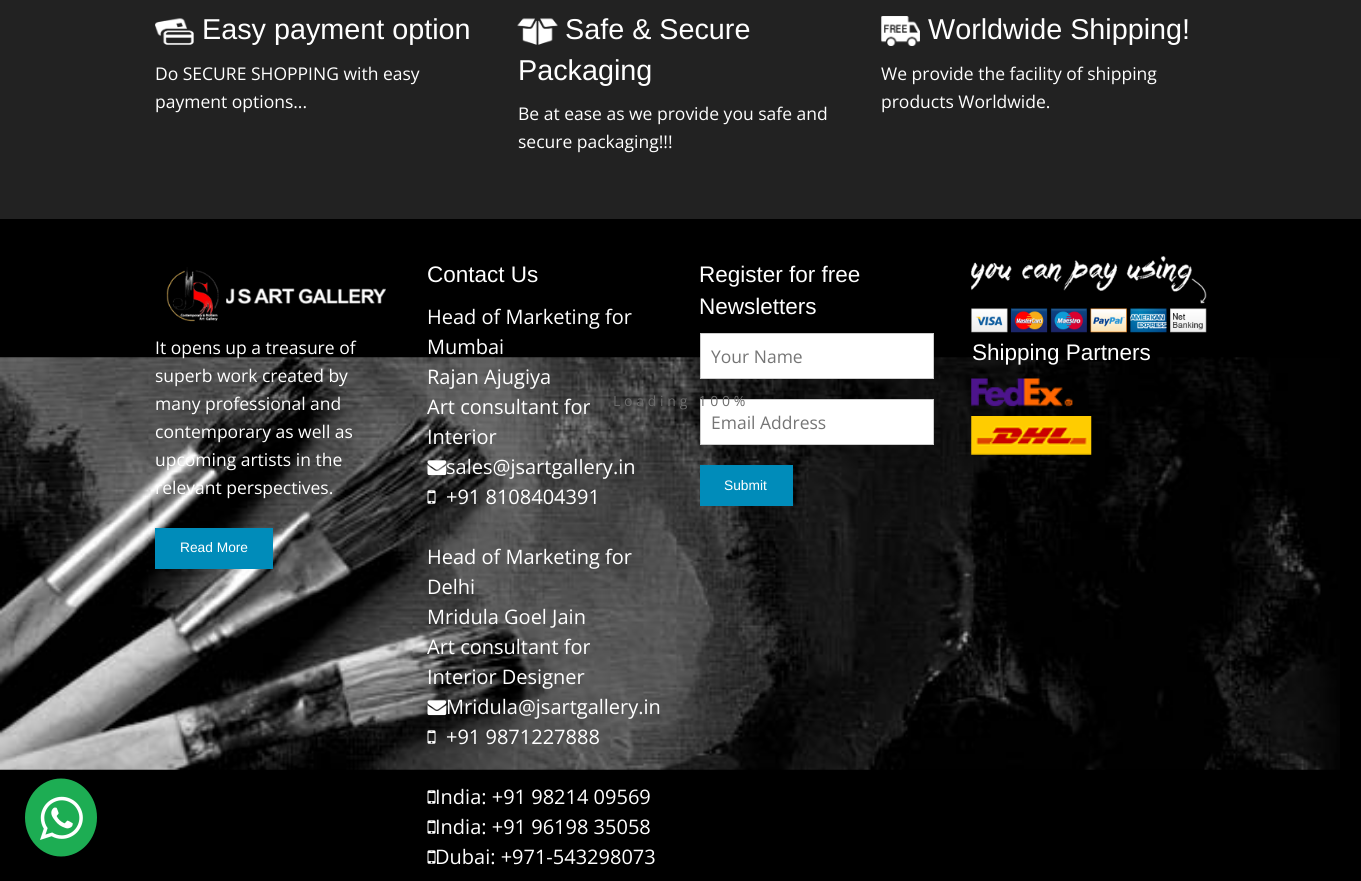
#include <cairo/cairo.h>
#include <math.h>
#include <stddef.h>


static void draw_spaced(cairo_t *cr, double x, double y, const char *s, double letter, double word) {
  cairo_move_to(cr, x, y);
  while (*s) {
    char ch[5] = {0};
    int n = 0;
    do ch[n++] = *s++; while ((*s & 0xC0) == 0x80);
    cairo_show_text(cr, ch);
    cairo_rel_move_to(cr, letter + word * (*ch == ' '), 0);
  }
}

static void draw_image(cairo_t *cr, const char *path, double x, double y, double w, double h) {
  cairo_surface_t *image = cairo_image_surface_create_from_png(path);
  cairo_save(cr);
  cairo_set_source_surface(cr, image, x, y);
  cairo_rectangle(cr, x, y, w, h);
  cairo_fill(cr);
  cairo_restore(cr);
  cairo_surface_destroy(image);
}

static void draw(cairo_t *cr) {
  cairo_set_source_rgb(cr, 34 / 255.0, 34 / 255.0, 34 / 255.0);
  cairo_paint(cr);
  cairo_set_source_rgb(cr, 0, 0, 0);
  cairo_rectangle(cr, 0, 219, 1361, 662);
  cairo_fill(cr);
  cairo_set_source_rgb(cr, 29 / 255.0, 173 / 255.0, 83 / 255.0);
  cairo_new_path(cr);
  cairo_move_to(cr, 61, 778.5);
  cairo_curve_to(cr, 81, 778.5, 97, 796, 97, 817.5);
  cairo_curve_to(cr, 97, 839, 81, 856.5, 61, 856.5);
  cairo_curve_to(cr, 41, 856.5, 25, 839, 25, 817.5);
  cairo_curve_to(cr, 25, 796, 41, 778.5, 61, 778.5);
  cairo_close_path(cr);
  cairo_fill(cr);
  draw_image(cr, "images/1.png", 40, 796, 43, 44);
  draw_image(cr, "images/2.png", 155, 18, 39, 27);
  draw_image(cr, "images/3.png", 517, 18, 41, 27);
  draw_image(cr, "images/4.png", 881, 16, 39, 30);
  draw_image(cr, "images/5.png", 0, 357, 1340, 413);
  draw_image(cr, "images/6.png", 166, 267, 220, 55);
  cairo_set_source_rgb(cr, 0, 140 / 255.0, 186 / 255.0);
  cairo_rectangle(cr, 155, 528, 118, 41);
  cairo_fill(cr);
  draw_image(cr, "images/7.png", 427, 460, 20, 16);
  draw_image(cr, "images/8.png", 427, 490, 9, 14);
  draw_image(cr, "images/9.png", 427, 700, 20, 16);
  draw_image(cr, "images/10.png", 427, 730, 9, 14);
  draw_image(cr, "images/11.png", 427, 790, 9, 14);
  draw_image(cr, "images/11.png", 427, 820, 9, 14);
  draw_image(cr, "images/11.png", 427, 850, 9, 14);
  cairo_set_source_rgb(cr, 1, 1, 1);
  cairo_rectangle(cr, 700.5, 333.5, 233, 45);
  cairo_fill_preserve(cr);
  cairo_set_source_rgb(cr, 204 / 255.0, 204 / 255.0, 204 / 255.0);
  cairo_set_line_width(cr, 1);
  cairo_stroke(cr);
  cairo_set_source_rgb(cr, 1, 1, 1);
  cairo_rectangle(cr, 700.5, 399.5, 233, 45);
  cairo_fill_preserve(cr);
  cairo_set_source_rgb(cr, 204 / 255.0, 204 / 255.0, 204 / 255.0);
  cairo_stroke(cr);
  cairo_set_source_rgb(cr, 0, 140 / 255.0, 186 / 255.0);
  cairo_rectangle(cr, 700, 465, 93, 41);
  cairo_fill(cr);
  draw_image(cr, "images/12.png", 971, 256, 236, 48);
  draw_image(cr, "images/13.png", 971, 308, 236, 25);
  draw_image(cr, "images/14.png", 971, 378, 102, 29);
  draw_image(cr, "images/15.png", 971, 416, 121, 39);
  cairo_select_font_face(cr, "Liberation Sans", CAIRO_FONT_SLANT_NORMAL, CAIRO_FONT_WEIGHT_NORMAL);
  cairo_set_font_size(cr, 28.75);
  cairo_set_source_rgb(cr, 1, 1, 1);
  cairo_move_to(cr, 202, 39);
  cairo_show_text(cr, "Easy payment option");
  cairo_select_font_face(cr, "Open Sans", CAIRO_FONT_SLANT_NORMAL, CAIRO_FONT_WEIGHT_NORMAL);
  cairo_set_font_size(cr, 17.5);
  cairo_move_to(cr, 155, 80);
  cairo_show_text(cr, "Do SECURE SHOPPING with easy");
  cairo_move_to(cr, 155, 108);
  cairo_show_text(cr, "payment options...");
  cairo_select_font_face(cr, "Liberation Sans", CAIRO_FONT_SLANT_NORMAL, CAIRO_FONT_WEIGHT_NORMAL);
  cairo_set_font_size(cr, 28.75);
  cairo_move_to(cr, 565, 39);
  cairo_show_text(cr, "Safe & Secure");
  cairo_move_to(cr, 518, 80);
  cairo_show_text(cr, "Packaging");
  cairo_select_font_face(cr, "Open Sans", CAIRO_FONT_SLANT_NORMAL, CAIRO_FONT_WEIGHT_NORMAL);
  cairo_set_font_size(cr, 17.5);
  cairo_move_to(cr, 518, 120);
  cairo_show_text(cr, "Be at ease as we provide you safe and");
  cairo_move_to(cr, 518, 148);
  cairo_show_text(cr, "secure packaging!!!");
  cairo_select_font_face(cr, "Liberation Sans", CAIRO_FONT_SLANT_NORMAL, CAIRO_FONT_WEIGHT_NORMAL);
  cairo_set_font_size(cr, 28.75);
  cairo_move_to(cr, 928, 39);
  cairo_show_text(cr, "Worldwide Shipping!");
  cairo_select_font_face(cr, "Open Sans", CAIRO_FONT_SLANT_NORMAL, CAIRO_FONT_WEIGHT_NORMAL);
  cairo_set_font_size(cr, 17.5);
  cairo_move_to(cr, 881, 80);
  cairo_show_text(cr, "We provide the facility of shipping");
  cairo_move_to(cr, 881, 108);
  cairo_show_text(cr, "products Worldwide.");
  cairo_move_to(cr, 155, 354);
  cairo_show_text(cr, "It opens up a treasure of");
  cairo_move_to(cr, 155, 382);
  cairo_show_text(cr, "superb work created by");
  cairo_move_to(cr, 155, 410);
  cairo_show_text(cr, "many professional and");
  cairo_move_to(cr, 155, 438);
  cairo_show_text(cr, "contemporary as well as");
  cairo_move_to(cr, 155, 466);
  cairo_show_text(cr, "upcoming artists in the");
  cairo_move_to(cr, 155, 494);
  cairo_show_text(cr, "relevant perspectives.");
  cairo_select_font_face(cr, "Liberation Sans", CAIRO_FONT_SLANT_NORMAL, CAIRO_FONT_WEIGHT_NORMAL);
  cairo_set_font_size(cr, 13.75);
  cairo_move_to(cr, 180, 552);
  cairo_show_text(cr, "Read More");
  cairo_set_font_size(cr, 22.5);
  cairo_move_to(cr, 427, 282);
  cairo_show_text(cr, "Contact Us");
  cairo_select_font_face(cr, "Open Sans", CAIRO_FONT_SLANT_NORMAL, CAIRO_FONT_WEIGHT_NORMAL);
  cairo_set_font_size(cr, 20);
  cairo_move_to(cr, 427, 324);
  cairo_show_text(cr, "Head of Marketing for");
  cairo_move_to(cr, 427, 354);
  cairo_show_text(cr, "Mumbai");
  cairo_move_to(cr, 427, 384);
  cairo_show_text(cr, "Rajan Ajugiya");
  cairo_move_to(cr, 427, 414);
  cairo_show_text(cr, "Art consultant for");
  cairo_move_to(cr, 427, 444);
  cairo_show_text(cr, "Interior");
  cairo_move_to(cr, 446, 474);
  cairo_show_text(cr, "sales@jsartgallery.in");
  cairo_move_to(cr, 446, 504);
  cairo_show_text(cr, "+91 8108404391");
  cairo_move_to(cr, 427, 564);
  cairo_show_text(cr, "Head of Marketing for");
  cairo_move_to(cr, 427, 594);
  cairo_show_text(cr, "Delhi");
  cairo_move_to(cr, 427, 624);
  cairo_show_text(cr, "Mridula Goel Jain");
  cairo_move_to(cr, 427, 654);
  cairo_show_text(cr, "Art consultant for");
  cairo_move_to(cr, 427, 684);
  cairo_show_text(cr, "Interior Designer");
  cairo_move_to(cr, 446, 714);
  cairo_show_text(cr, "Mridula@jsartgallery.in");
  cairo_move_to(cr, 446, 744);
  cairo_show_text(cr, "+91 9871227888");
  cairo_move_to(cr, 435, 804);
  cairo_show_text(cr, "India: +91 98214 09569");
  cairo_move_to(cr, 435, 834);
  cairo_show_text(cr, "India: +91 96198 35058");
  cairo_move_to(cr, 435, 864);
  cairo_show_text(cr, "Dubai: +971-543298073");
  cairo_select_font_face(cr, "Liberation Sans", CAIRO_FONT_SLANT_NORMAL, CAIRO_FONT_WEIGHT_NORMAL);
  cairo_set_font_size(cr, 22.5);
  cairo_move_to(cr, 699, 282);
  cairo_show_text(cr, "Register for free");
  cairo_move_to(cr, 699, 314);
  cairo_show_text(cr, "Newsletters");
  cairo_select_font_face(cr, "Open Sans", CAIRO_FONT_SLANT_NORMAL, CAIRO_FONT_WEIGHT_NORMAL);
  cairo_set_font_size(cr, 17.5);
  cairo_set_source_rgb(cr, 117 / 255.0, 117 / 255.0, 117 / 255.0);
  cairo_move_to(cr, 711, 363);
  cairo_show_text(cr, "Your Name");
  cairo_move_to(cr, 711, 429);
  cairo_show_text(cr, "Email Address");
  cairo_select_font_face(cr, "Liberation Sans", CAIRO_FONT_SLANT_NORMAL, CAIRO_FONT_WEIGHT_NORMAL);
  cairo_set_font_size(cr, 13.75);
  cairo_set_source_rgb(cr, 1, 1, 1);
  cairo_move_to(cr, 724, 490);
  cairo_show_text(cr, "Submit");
  cairo_set_font_size(cr, 22.5);
  cairo_move_to(cr, 972, 360);
  cairo_show_text(cr, "Shipping Partners");
  cairo_select_font_face(cr, "Open Sans", CAIRO_FONT_SLANT_NORMAL, CAIRO_FONT_WEIGHT_NORMAL);
  cairo_set_font_size(cr, 14);
  cairo_set_source_rgb(cr, 107 / 255.0, 107 / 255.0, 107 / 255.0);
  draw_spaced(cr, 613, 406, "Loading 100%", 3.75, 0);
}

int main(void) {
  cairo_surface_t *surface = cairo_image_surface_create(CAIRO_FORMAT_RGB24, 1361, 881);
  cairo_t *cr = cairo_create(surface);
  cairo_font_options_t *options = cairo_font_options_create();
  cairo_font_options_set_hint_metrics(options, CAIRO_HINT_METRICS_OFF);
  cairo_font_options_set_hint_style(options, CAIRO_HINT_STYLE_NONE);
  cairo_set_font_options(cr, options);
  cairo_set_miter_limit(cr, 4);
  draw(cr);
  cairo_surface_write_to_png(surface, "out.png");
  cairo_font_options_destroy(options);
  cairo_destroy(cr);
  cairo_surface_destroy(surface);
  return 0;
}
